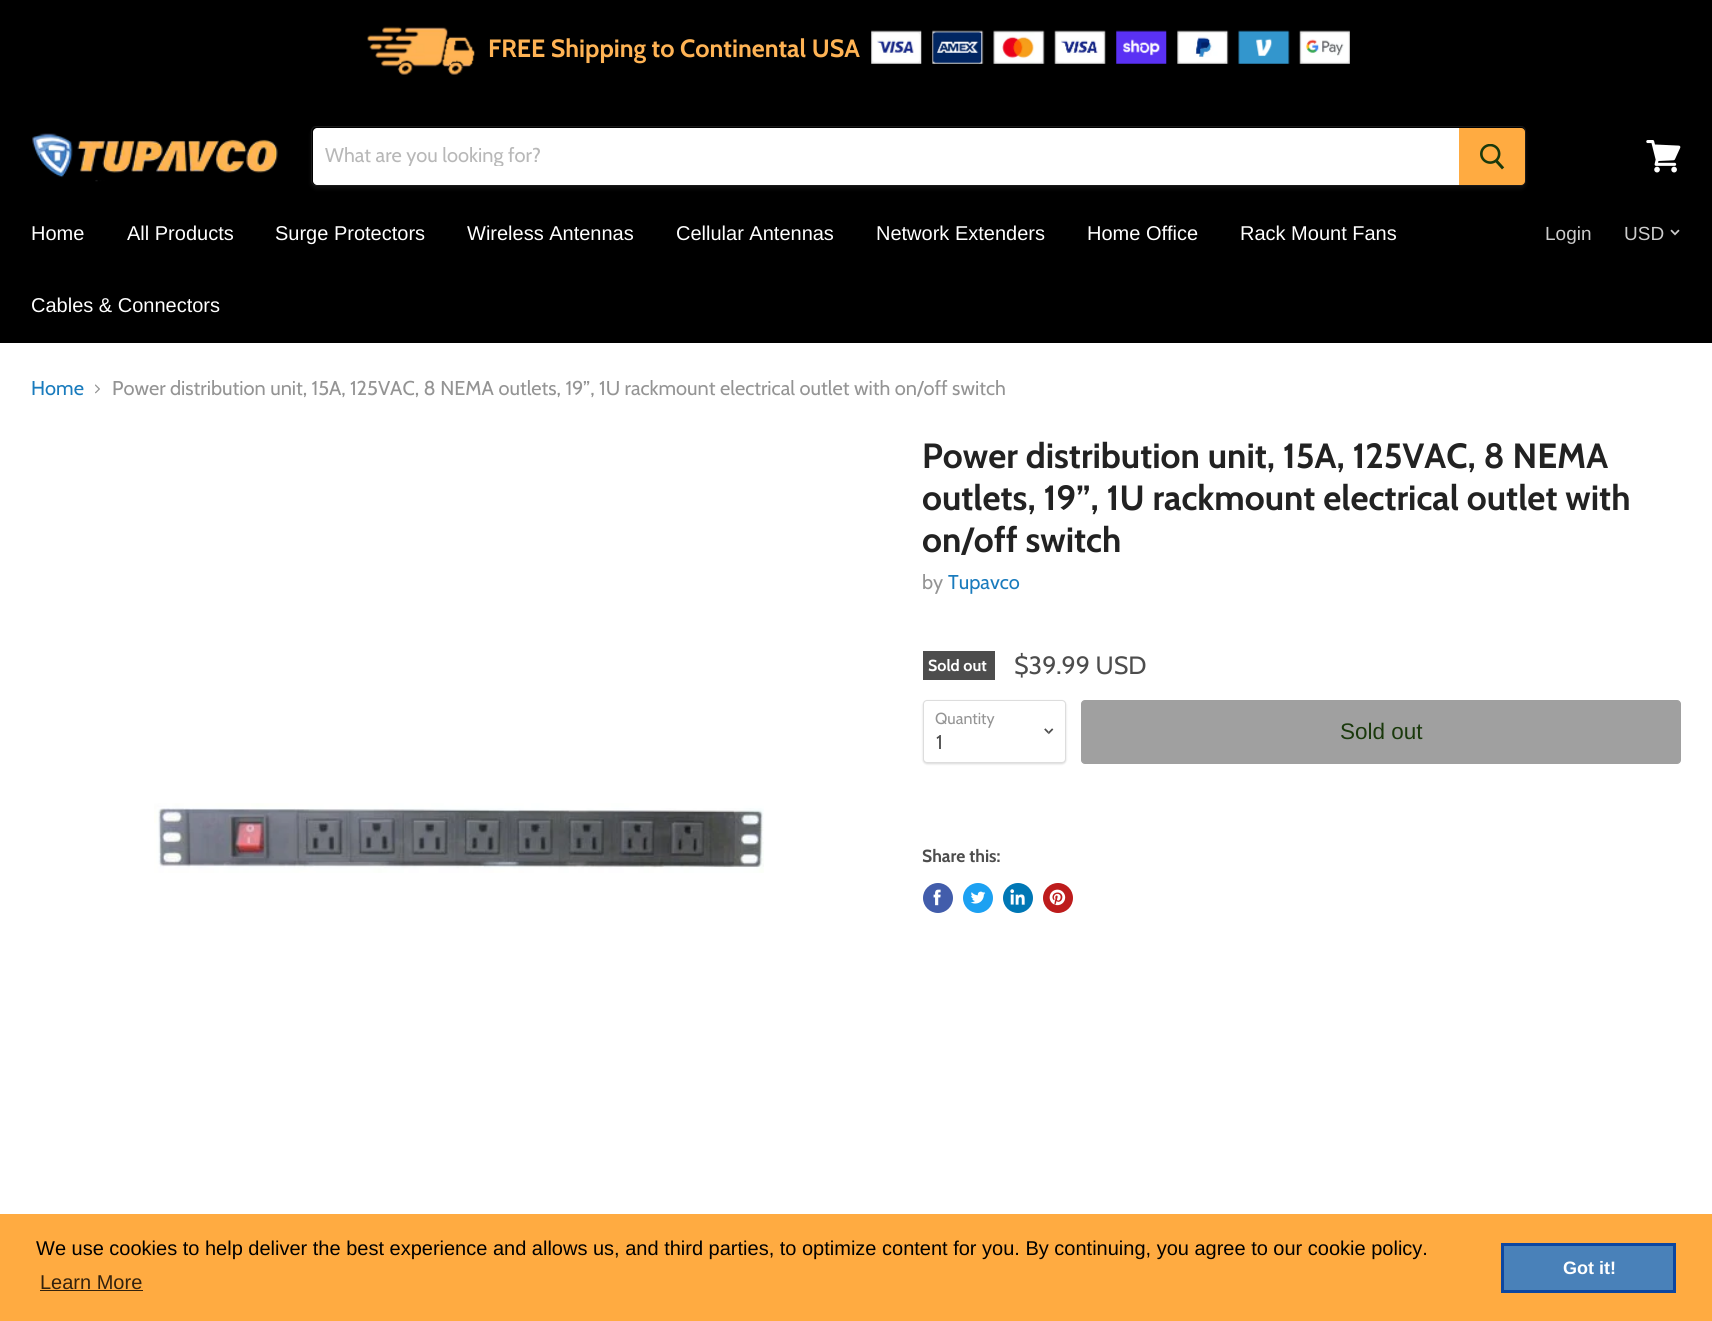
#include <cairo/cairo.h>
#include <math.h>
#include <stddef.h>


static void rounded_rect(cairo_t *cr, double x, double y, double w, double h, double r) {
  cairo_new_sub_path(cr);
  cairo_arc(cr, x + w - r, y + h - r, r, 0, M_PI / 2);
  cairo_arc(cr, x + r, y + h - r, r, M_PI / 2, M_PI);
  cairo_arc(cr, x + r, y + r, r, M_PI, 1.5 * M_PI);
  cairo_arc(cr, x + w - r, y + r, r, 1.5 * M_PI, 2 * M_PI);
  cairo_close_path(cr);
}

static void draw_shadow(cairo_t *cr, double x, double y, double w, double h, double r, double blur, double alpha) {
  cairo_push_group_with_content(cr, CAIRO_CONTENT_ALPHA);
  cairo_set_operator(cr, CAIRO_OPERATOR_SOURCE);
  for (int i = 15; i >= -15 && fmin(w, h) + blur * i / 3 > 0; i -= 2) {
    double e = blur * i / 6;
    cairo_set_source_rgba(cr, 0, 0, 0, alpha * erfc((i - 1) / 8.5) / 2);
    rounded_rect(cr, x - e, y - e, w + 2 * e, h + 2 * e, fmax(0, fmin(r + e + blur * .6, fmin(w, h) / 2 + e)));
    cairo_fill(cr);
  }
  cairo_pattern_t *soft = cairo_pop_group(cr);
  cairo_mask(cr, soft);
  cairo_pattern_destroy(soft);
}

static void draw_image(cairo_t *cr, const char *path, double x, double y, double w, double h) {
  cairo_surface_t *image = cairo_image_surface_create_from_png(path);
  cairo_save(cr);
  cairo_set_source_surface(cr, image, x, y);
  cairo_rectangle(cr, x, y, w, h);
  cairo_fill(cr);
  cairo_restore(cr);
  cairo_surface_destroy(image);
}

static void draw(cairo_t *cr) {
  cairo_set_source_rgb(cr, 1, 1, 1);
  cairo_paint(cr);
  cairo_set_source_rgb(cr, 0, 0, 0);
  cairo_rectangle(cr, 0, 0, 1712, 343);
  cairo_fill(cr);
  draw_image(cr, "images/1.png", 367, 26, 108, 49);
  draw_image(cr, "images/2.png", 871, 30, 51, 34);
  draw_image(cr, "images/3.png", 932, 30, 52, 34);
  draw_image(cr, "images/4.png", 993, 30, 52, 34);
  draw_image(cr, "images/5.png", 1054, 30, 52, 34);
  draw_image(cr, "images/6.png", 1116, 30, 51, 34);
  draw_image(cr, "images/7.png", 1177, 30, 52, 34);
  draw_image(cr, "images/8.png", 1238, 30, 52, 34);
  draw_image(cr, "images/9.png", 1299, 30, 51, 34);
  draw_image(cr, "images/10.png", 32, 133, 246, 49);
  cairo_save(cr);
  cairo_set_fill_rule(cr, CAIRO_FILL_RULE_EVEN_ODD);
  cairo_new_path(cr);
  cairo_move_to(cr, 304, 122);
  cairo_line_to(cr, 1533, 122);
  cairo_line_to(cr, 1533, 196);
  cairo_line_to(cr, 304, 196);
  cairo_close_path(cr);
  cairo_move_to(cr, 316, 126);
  cairo_line_to(cr, 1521, 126);
  cairo_curve_to(cr, 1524, 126, 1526, 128, 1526, 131);
  cairo_line_to(cr, 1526, 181);
  cairo_curve_to(cr, 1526, 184, 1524, 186, 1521, 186);
  cairo_line_to(cr, 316, 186);
  cairo_curve_to(cr, 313, 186, 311, 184, 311, 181);
  cairo_line_to(cr, 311, 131);
  cairo_curve_to(cr, 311, 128, 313, 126, 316, 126);
  cairo_close_path(cr);
  cairo_clip(cr);
  cairo_set_source_rgb(cr, 127 / 255.0, 127 / 255.0, 127 / 255.0);
  draw_shadow(cr, 311, 129, 1215, 60, 5, 2, 0.11);
  cairo_restore(cr);
  rounded_rect(cr, 311.5, 126.5, 1214, 59, 4.5);
  cairo_set_source_rgba(cr, 127 / 255.0, 127 / 255.0, 127 / 255.0, 0.2);
  cairo_set_line_width(cr, 1);
  cairo_stroke(cr);
  cairo_set_source_rgb(cr, 1, 1, 1);
  cairo_new_path(cr);
  cairo_move_to(cr, 317, 128);
  cairo_line_to(cr, 1459, 128);
  cairo_line_to(cr, 1459, 185);
  cairo_line_to(cr, 317, 185);
  cairo_curve_to(cr, 315, 185, 313, 183, 313, 181);
  cairo_line_to(cr, 313, 132);
  cairo_curve_to(cr, 313, 130, 315, 128, 317, 128);
  cairo_close_path(cr);
  cairo_fill(cr);
  cairo_set_source_rgb(cr, 1, 171 / 255.0, 65 / 255.0);
  cairo_new_path(cr);
  cairo_move_to(cr, 1459.5, 128.5);
  cairo_line_to(cr, 1521, 128.5);
  cairo_curve_to(cr, 1523, 128.5, 1524.5, 130, 1524.5, 132);
  cairo_line_to(cr, 1524.5, 181);
  cairo_curve_to(cr, 1524.5, 183, 1523, 184.5, 1521, 184.5);
  cairo_line_to(cr, 1459.5, 184.5);
  cairo_close_path(cr);
  cairo_fill_preserve(cr);
  cairo_stroke(cr);
  draw_image(cr, "images/11.png", 1480, 144, 25, 26);
  draw_image(cr, "images/12.png", 1646, 140, 35, 33);
  draw_image(cr, "images/13.png", 1670, 229, 10, 7);
  draw_image(cr, "images/14.png", 95, 384, 5, 10);
  draw_image(cr, "images/15.png", 154, 803, 610, 70);
  cairo_set_source_rgb(cr, 77 / 255.0, 77 / 255.0, 77 / 255.0);
  cairo_rectangle(cr, 923, 651, 72, 29);
  cairo_fill(cr);
  cairo_set_source_rgb(cr, 0, 0, 0);
  draw_shadow(cr, 923, 701, 143, 63, 4, 1, 0.15);
  cairo_set_source_rgb(cr, 1, 1, 1);
  rounded_rect(cr, 923.5, 700.5, 142, 62, 3.5);
  cairo_fill_preserve(cr);
  cairo_set_source_rgb(cr, 221 / 255.0, 221 / 255.0, 221 / 255.0);
  cairo_stroke(cr);
  draw_image(cr, "images/16.png", 1044, 728, 10, 7);
  cairo_set_source_rgb(cr, 160 / 255.0, 160 / 255.0, 160 / 255.0);
  rounded_rect(cr, 1081.5, 700.5, 599, 63, 3.5);
  cairo_fill_preserve(cr);
  cairo_stroke(cr);
  cairo_set_source_rgb(cr, 66 / 255.0, 93 / 255.0, 171 / 255.0);
  cairo_arc(cr, 938, 898, 15, 0, 2 * M_PI);
  cairo_fill(cr);
  draw_image(cr, "images/17.png", 933, 889, 8, 17);
  cairo_set_source_rgb(cr, 29 / 255.0, 161 / 255.0, 242 / 255.0);
  cairo_arc(cr, 978, 898, 15, 0, 2 * M_PI);
  cairo_fill(cr);
  draw_image(cr, "images/18.png", 970, 891, 16, 13);
  cairo_set_source_rgb(cr, 0, 119 / 255.0, 181 / 255.0);
  cairo_arc(cr, 1018, 898, 15, 0, 2 * M_PI);
  cairo_fill(cr);
  draw_image(cr, "images/19.png", 1010, 889, 15, 16);
  cairo_set_source_rgb(cr, 189 / 255.0, 28 / 255.0, 28 / 255.0);
  cairo_arc(cr, 1058, 898, 15, 0, 2 * M_PI);
  cairo_fill(cr);
  draw_image(cr, "images/20.png", 1049, 889, 17, 17);
  cairo_set_source_rgb(cr, 1, 171 / 255.0, 65 / 255.0);
  cairo_rectangle(cr, 0, 1214, 1712, 107);
  cairo_fill(cr);
  cairo_set_source_rgb(cr, 51 / 255.0, 34 / 255.0, 13 / 255.0);
  cairo_rectangle(cr, 40, 1290, 103, 1);
  cairo_fill(cr);
  cairo_set_source_rgb(cr, 73 / 255.0, 129 / 255.0, 185 / 255.0);
  cairo_rectangle(cr, 1502.5, 1244.5, 172, 47);
  cairo_fill_preserve(cr);
  cairo_set_source_rgb(cr, 13 / 255.0, 71 / 255.0, 161 / 255.0);
  cairo_set_line_width(cr, 3);
  cairo_stroke(cr);
  cairo_select_font_face(cr, "Cabin", CAIRO_FONT_SLANT_NORMAL, CAIRO_FONT_WEIGHT_BOLD);
  cairo_set_font_size(cr, 25);
  cairo_set_source_rgb(cr, 1, 179 / 255.0, 84 / 255.0);
  cairo_move_to(cr, 488, 57);
  cairo_show_text(cr, "FREE Shipping to Continental USA");
  cairo_save(cr);
  cairo_rectangle(cr, 325, 143, 1121, 23);
  cairo_clip(cr);
  cairo_select_font_face(cr, "Cabin", CAIRO_FONT_SLANT_NORMAL, CAIRO_FONT_WEIGHT_NORMAL);
  cairo_set_font_size(cr, 20);
  cairo_set_source_rgb(cr, 184 / 255.0, 184 / 255.0, 184 / 255.0);
  cairo_move_to(cr, 325, 162);
  cairo_show_text(cr, "What are you looking for?");
  cairo_restore(cr);
  cairo_select_font_face(cr, "Liberation Sans", CAIRO_FONT_SLANT_NORMAL, CAIRO_FONT_WEIGHT_NORMAL);
  cairo_set_font_size(cr, 20);
  cairo_set_source_rgb(cr, 1, 1, 1);
  cairo_move_to(cr, 31, 240);
  cairo_show_text(cr, "Home");
  cairo_move_to(cr, 127, 240);
  cairo_show_text(cr, "All Products");
  cairo_move_to(cr, 275, 240);
  cairo_show_text(cr, "Surge Protectors");
  cairo_move_to(cr, 467, 240);
  cairo_show_text(cr, "Wireless Antennas");
  cairo_move_to(cr, 676, 240);
  cairo_show_text(cr, "Cellular Antennas");
  cairo_move_to(cr, 876, 240);
  cairo_show_text(cr, "Network Extenders");
  cairo_move_to(cr, 1087, 240);
  cairo_show_text(cr, "Home Office");
  cairo_move_to(cr, 1240, 240);
  cairo_show_text(cr, "Rack Mount Fans");
  cairo_move_to(cr, 31, 312);
  cairo_show_text(cr, "Cables & Connectors");
  cairo_set_font_size(cr, 19);
  cairo_set_source_rgb(cr, 204 / 255.0, 204 / 255.0, 204 / 255.0);
  cairo_move_to(cr, 1545, 240);
  cairo_show_text(cr, "Login");
  cairo_move_to(cr, 1624, 240);
  cairo_show_text(cr, "USD");
  cairo_select_font_face(cr, "Cabin", CAIRO_FONT_SLANT_NORMAL, CAIRO_FONT_WEIGHT_NORMAL);
  cairo_set_font_size(cr, 20);
  cairo_set_source_rgb(cr, 25 / 255.0, 123 / 255.0, 189 / 255.0);
  cairo_move_to(cr, 31, 395);
  cairo_show_text(cr, "Home");
  cairo_set_source_rgb(cr, 148 / 255.0, 148 / 255.0, 148 / 255.0);
  cairo_move_to(cr, 112, 395);
  cairo_show_text(cr, "Power distribution unit, 15A, 125VAC, 8 NEMA outlets, 19”, 1U rackmount electrical outlet with on/off switch");
  cairo_select_font_face(cr, "Cabin", CAIRO_FONT_SLANT_NORMAL, CAIRO_FONT_WEIGHT_BOLD);
  cairo_set_font_size(cr, 35);
  cairo_set_source_rgb(cr, 34 / 255.0, 34 / 255.0, 34 / 255.0);
  cairo_move_to(cr, 922, 468);
  cairo_show_text(cr, "Power distribution unit, 15A, 125VAC, 8 NEMA");
  cairo_move_to(cr, 922, 510);
  cairo_show_text(cr, "outlets, 19”, 1U rackmount electrical outlet with");
  cairo_move_to(cr, 922, 552);
  cairo_show_text(cr, "on/off switch");
  cairo_select_font_face(cr, "Cabin", CAIRO_FONT_SLANT_NORMAL, CAIRO_FONT_WEIGHT_NORMAL);
  cairo_set_font_size(cr, 20);
  cairo_set_source_rgb(cr, 148 / 255.0, 148 / 255.0, 148 / 255.0);
  cairo_move_to(cr, 922, 589);
  cairo_show_text(cr, "by");
  cairo_set_source_rgb(cr, 25 / 255.0, 123 / 255.0, 189 / 255.0);
  cairo_move_to(cr, 948, 589);
  cairo_show_text(cr, "Tupavco");
  cairo_select_font_face(cr, "Cabin", CAIRO_FONT_SLANT_NORMAL, CAIRO_FONT_WEIGHT_BOLD);
  cairo_set_font_size(cr, 16);
  cairo_set_source_rgb(cr, 1, 1, 1);
  cairo_move_to(cr, 928, 671);
  cairo_show_text(cr, "Sold out");
  cairo_select_font_face(cr, "Cabin", CAIRO_FONT_SLANT_NORMAL, CAIRO_FONT_WEIGHT_NORMAL);
  cairo_set_font_size(cr, 25);
  cairo_set_source_rgb(cr, 77 / 255.0, 77 / 255.0, 77 / 255.0);
  cairo_move_to(cr, 1014, 674);
  cairo_show_text(cr, "$39.99 USD");
  cairo_set_font_size(cr, 16);
  cairo_set_source_rgb(cr, 148 / 255.0, 148 / 255.0, 148 / 255.0);
  cairo_move_to(cr, 935, 724);
  cairo_show_text(cr, "Quantity");
  cairo_set_font_size(cr, 20);
  cairo_set_source_rgb(cr, 77 / 255.0, 77 / 255.0, 77 / 255.0);
  cairo_move_to(cr, 936, 749);
  cairo_show_text(cr, "1");
  cairo_select_font_face(cr, "Liberation Sans", CAIRO_FONT_SLANT_NORMAL, CAIRO_FONT_WEIGHT_NORMAL);
  cairo_set_font_size(cr, 22.5);
  cairo_set_source_rgb(cr, 26 / 255.0, 57 / 255.0, 12 / 255.0);
  cairo_move_to(cr, 1340, 739);
  cairo_show_text(cr, "Sold out");
  cairo_select_font_face(cr, "Cabin", CAIRO_FONT_SLANT_NORMAL, CAIRO_FONT_WEIGHT_BOLD);
  cairo_set_font_size(cr, 17.5);
  cairo_set_source_rgb(cr, 77 / 255.0, 77 / 255.0, 77 / 255.0);
  cairo_move_to(cr, 922, 862);
  cairo_show_text(cr, "Share this:");
  cairo_select_font_face(cr, "Liberation Sans", CAIRO_FONT_SLANT_NORMAL, CAIRO_FONT_WEIGHT_NORMAL);
  cairo_set_font_size(cr, 20);
  cairo_set_source_rgb(cr, 0, 0, 0);
  cairo_move_to(cr, 36, 1255);
  cairo_show_text(cr, "We use cookies to help deliver the best experience and allows us, and third parties, to optimize content for you. By continuing, you agree to our cookie policy.");
  cairo_set_source_rgb(cr, 51 / 255.0, 34 / 255.0, 13 / 255.0);
  cairo_move_to(cr, 40, 1289);
  cairo_show_text(cr, "Learn More");
  cairo_select_font_face(cr, "Liberation Sans", CAIRO_FONT_SLANT_NORMAL, CAIRO_FONT_WEIGHT_BOLD);
  cairo_set_font_size(cr, 18);
  cairo_set_source_rgb(cr, 1, 1, 1);
  cairo_move_to(cr, 1563, 1274);
  cairo_show_text(cr, "Got it!");
}

int main(void) {
  cairo_surface_t *surface = cairo_image_surface_create(CAIRO_FORMAT_RGB24, 1712, 1321);
  cairo_t *cr = cairo_create(surface);
  cairo_font_options_t *options = cairo_font_options_create();
  cairo_font_options_set_hint_metrics(options, CAIRO_HINT_METRICS_OFF);
  cairo_font_options_set_hint_style(options, CAIRO_HINT_STYLE_NONE);
  cairo_set_font_options(cr, options);
  cairo_set_miter_limit(cr, 4);
  draw(cr);
  cairo_surface_write_to_png(surface, "out.png");
  cairo_font_options_destroy(options);
  cairo_destroy(cr);
  cairo_surface_destroy(surface);
  return 0;
}
